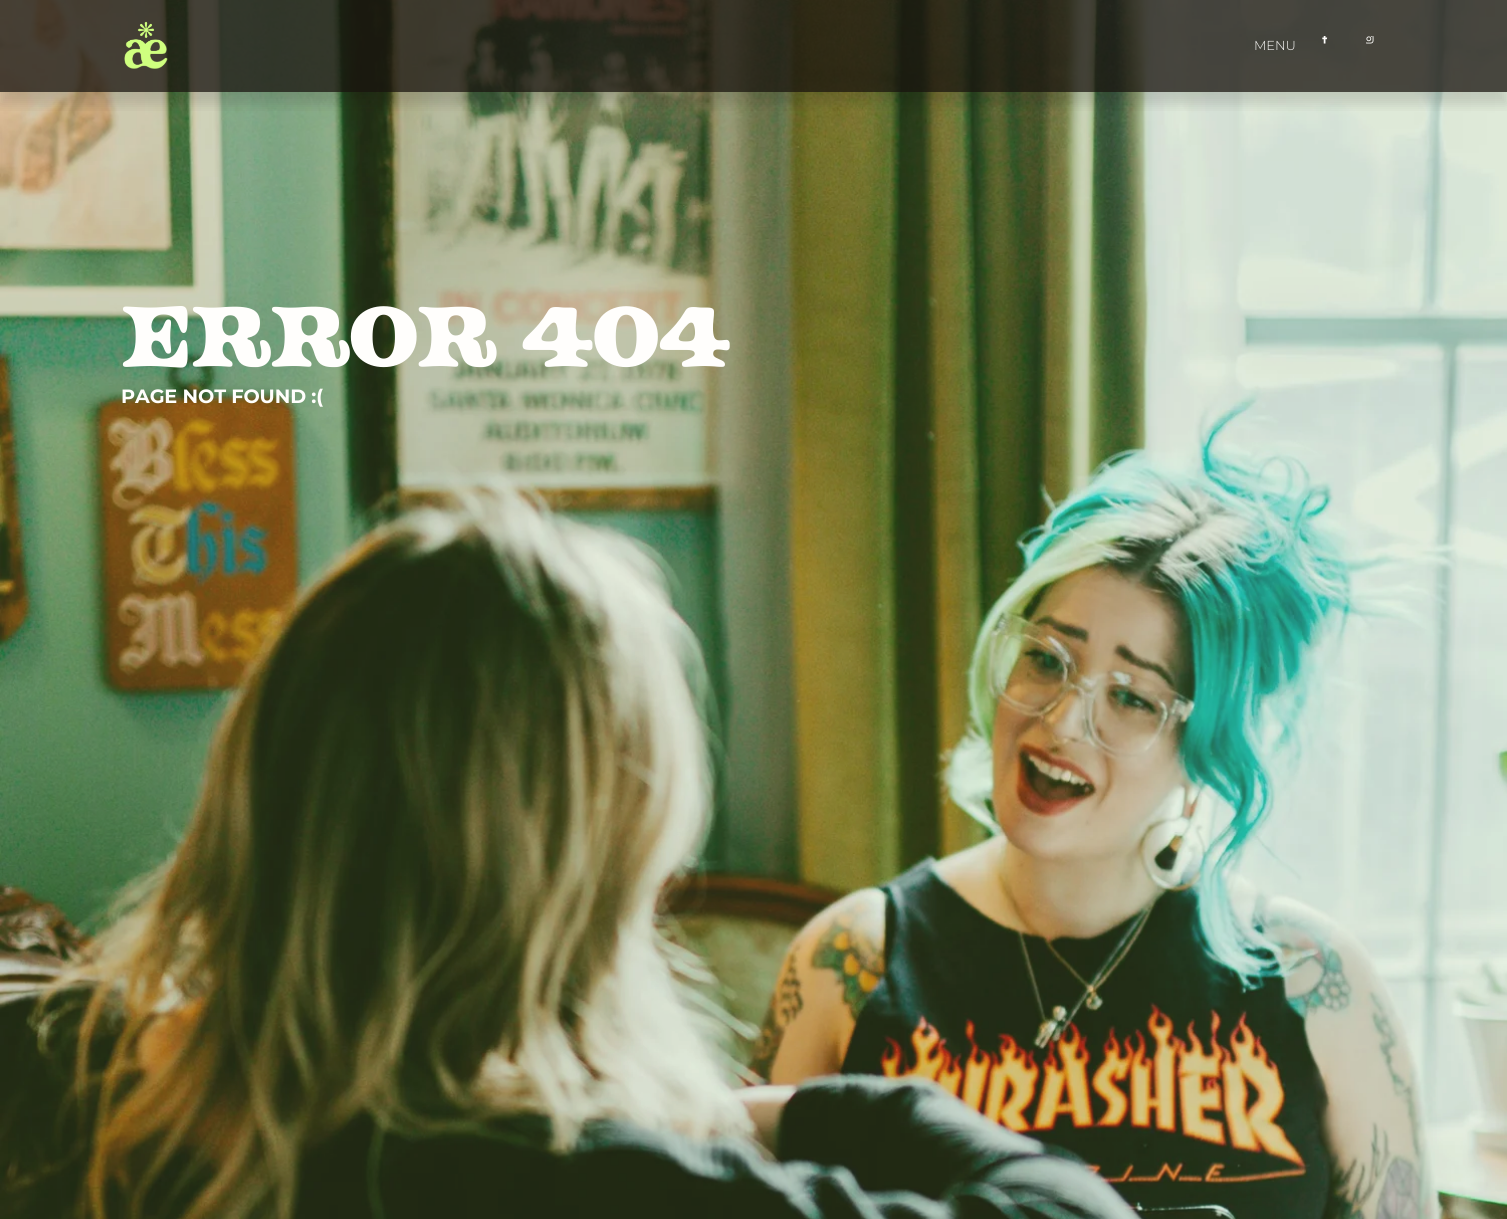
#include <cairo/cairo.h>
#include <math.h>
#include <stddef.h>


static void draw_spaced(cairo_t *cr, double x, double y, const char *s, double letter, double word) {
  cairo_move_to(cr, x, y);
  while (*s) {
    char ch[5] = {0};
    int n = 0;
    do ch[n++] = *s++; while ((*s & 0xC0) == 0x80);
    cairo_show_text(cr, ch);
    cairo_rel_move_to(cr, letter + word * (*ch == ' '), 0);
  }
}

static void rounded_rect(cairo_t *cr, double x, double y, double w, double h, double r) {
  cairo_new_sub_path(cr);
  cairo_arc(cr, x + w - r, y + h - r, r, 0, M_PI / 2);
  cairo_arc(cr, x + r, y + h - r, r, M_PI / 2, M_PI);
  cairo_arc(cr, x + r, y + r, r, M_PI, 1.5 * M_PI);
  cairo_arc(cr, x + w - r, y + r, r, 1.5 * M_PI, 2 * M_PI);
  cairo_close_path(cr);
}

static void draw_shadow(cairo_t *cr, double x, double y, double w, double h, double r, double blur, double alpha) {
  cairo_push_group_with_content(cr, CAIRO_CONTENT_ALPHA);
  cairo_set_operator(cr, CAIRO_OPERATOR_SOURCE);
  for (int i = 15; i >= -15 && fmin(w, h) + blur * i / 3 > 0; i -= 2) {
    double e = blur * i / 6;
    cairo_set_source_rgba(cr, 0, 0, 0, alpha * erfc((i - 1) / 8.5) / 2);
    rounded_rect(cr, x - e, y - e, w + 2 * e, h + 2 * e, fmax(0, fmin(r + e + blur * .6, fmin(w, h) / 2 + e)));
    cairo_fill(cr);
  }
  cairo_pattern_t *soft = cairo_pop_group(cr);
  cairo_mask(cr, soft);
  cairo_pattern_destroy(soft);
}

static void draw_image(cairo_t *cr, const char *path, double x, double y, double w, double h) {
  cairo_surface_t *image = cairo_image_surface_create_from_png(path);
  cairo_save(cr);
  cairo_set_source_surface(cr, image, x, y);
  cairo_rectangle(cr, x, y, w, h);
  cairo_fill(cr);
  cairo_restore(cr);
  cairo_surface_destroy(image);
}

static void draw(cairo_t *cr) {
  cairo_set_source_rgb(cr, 1, 1, 1);
  cairo_paint(cr);
  draw_image(cr, "images/4.png", 0, 0, 1507, 1219);
  cairo_save(cr);
  cairo_rectangle(cr, 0, 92, 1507, 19);
  cairo_clip(cr);
  cairo_set_source_rgb(cr, 24 / 255.0, 19 / 255.0, 14 / 255.0);
  draw_shadow(cr, 0, 12, 1507, 92, 0, 6, 0.15);
  cairo_restore(cr);
  cairo_set_source_rgba(cr, 24 / 255.0, 19 / 255.0, 14 / 255.0, 0.76);
  cairo_rectangle(cr, 0, 0, 1507, 92);
  cairo_fill(cr);
  draw_image(cr, "images/1.png", 1322, 36, 6, 8);
  draw_image(cr, "images/2.png", 1366, 36, 8, 8);
  draw_image(cr, "images/3.png", 124, 21, 44, 48);
  cairo_select_font_face(cr, "Montserrat Light", CAIRO_FONT_SLANT_NORMAL, CAIRO_FONT_WEIGHT_NORMAL);
  cairo_set_font_size(cr, 13);
  cairo_set_source_rgb(cr, 1, 254 / 255.0, 252 / 255.0);
  draw_spaced(cr, 1254, 50, "MENU", -0.1, 0);
  cairo_select_font_face(cr, "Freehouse", CAIRO_FONT_SLANT_NORMAL, CAIRO_FONT_WEIGHT_NORMAL);
  cairo_set_font_size(cr, 92.75);
  draw_spaced(cr, 121, 366, "ERROR 404", -1.75, 0);
  cairo_select_font_face(cr, "Montserrat", CAIRO_FONT_SLANT_NORMAL, CAIRO_FONT_WEIGHT_BOLD);
  cairo_set_font_size(cr, 19.25);
  draw_spaced(cr, 121, 403, "PAGE NOT FOUND :(", -0.1, 0);
}

int main(void) {
  cairo_surface_t *surface = cairo_image_surface_create(CAIRO_FORMAT_RGB24, 1507, 1219);
  cairo_t *cr = cairo_create(surface);
  cairo_font_options_t *options = cairo_font_options_create();
  cairo_font_options_set_hint_metrics(options, CAIRO_HINT_METRICS_OFF);
  cairo_font_options_set_hint_style(options, CAIRO_HINT_STYLE_NONE);
  cairo_set_font_options(cr, options);
  cairo_set_miter_limit(cr, 4);
  draw(cr);
  cairo_surface_write_to_png(surface, "out.png");
  cairo_font_options_destroy(options);
  cairo_destroy(cr);
  cairo_surface_destroy(surface);
  return 0;
}
